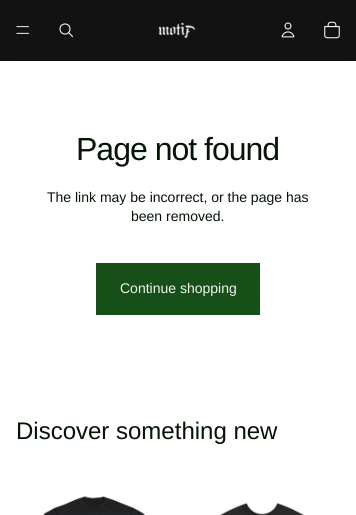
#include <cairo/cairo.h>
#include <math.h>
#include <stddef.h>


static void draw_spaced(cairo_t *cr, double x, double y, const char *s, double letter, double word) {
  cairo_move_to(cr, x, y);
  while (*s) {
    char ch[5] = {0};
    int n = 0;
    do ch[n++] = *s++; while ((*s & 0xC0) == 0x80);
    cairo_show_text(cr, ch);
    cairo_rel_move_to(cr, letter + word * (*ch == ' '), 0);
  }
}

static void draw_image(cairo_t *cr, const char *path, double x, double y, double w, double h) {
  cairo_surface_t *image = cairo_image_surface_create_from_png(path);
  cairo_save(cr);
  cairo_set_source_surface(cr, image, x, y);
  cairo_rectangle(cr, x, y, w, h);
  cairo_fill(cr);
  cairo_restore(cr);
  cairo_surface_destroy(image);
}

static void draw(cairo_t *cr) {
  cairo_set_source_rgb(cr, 1, 1, 1);
  cairo_paint(cr);
  cairo_set_source_rgb(cr, 18 / 255.0, 18 / 255.0, 18 / 255.0);
  cairo_rectangle(cr, 0, 0, 356, 61);
  cairo_fill(cr);
  cairo_set_source_rgb(cr, 6 / 255.0, 20 / 255.0, 6 / 255.0);
  cairo_rectangle(cr, 16, 60, 324, 1);
  cairo_fill(cr);
  draw_image(cr, "images/1.png", 16, 26, 14, 8);
  cairo_arc(cr, 65, 29, 5, 0, 2 * M_PI);
  cairo_set_source_rgb(cr, 239 / 255.0, 245 / 255.0, 239 / 255.0);
  cairo_set_line_width(cr, 1.1);
  cairo_stroke(cr);
  cairo_new_path(cr);
  cairo_move_to(cr, 69, 33);
  cairo_line_to(cr, 72.5, 36.5);
  cairo_set_line_cap(cr, CAIRO_LINE_CAP_ROUND);
  cairo_set_line_join(cr, CAIRO_LINE_JOIN_ROUND);
  cairo_stroke(cr);
  draw_image(cr, "images/2.png", 158, 22, 38, 16);
  draw_image(cr, "images/3.png", 281, 22, 14, 16);
  draw_image(cr, "images/4.png", 324, 21, 16, 18);
  cairo_set_source_rgb(cr, 23 / 255.0, 79 / 255.0, 25 / 255.0);
  cairo_rectangle(cr, 96, 263, 164, 52);
  cairo_fill(cr);
  draw_image(cr, "images/5.png", 43, 496, 102, 19);
  draw_image(cr, "images/6.png", 220, 502, 84, 13);
  cairo_select_font_face(cr, "Arimo", CAIRO_FONT_SLANT_NORMAL, CAIRO_FONT_WEIGHT_NORMAL);
  cairo_set_font_size(cr, 32);
  cairo_set_source_rgb(cr, 6 / 255.0, 20 / 255.0, 6 / 255.0);
  draw_spaced(cr, 76, 160, "Page not found", -1, 0);
  cairo_set_font_size(cr, 14);
  cairo_move_to(cr, 47, 202);
  cairo_show_text(cr, "The link may be incorrect, or the page has");
  cairo_move_to(cr, 131, 221);
  cairo_show_text(cr, "been removed.");
  cairo_set_source_rgb(cr, 239 / 255.0, 245 / 255.0, 239 / 255.0);
  cairo_move_to(cr, 120, 293);
  cairo_show_text(cr, "Continue shopping");
  cairo_set_font_size(cr, 24);
  cairo_set_source_rgb(cr, 6 / 255.0, 20 / 255.0, 6 / 255.0);
  cairo_move_to(cr, 16, 439);
  cairo_show_text(cr, "Discover something new");
}

int main(void) {
  cairo_surface_t *surface = cairo_image_surface_create(CAIRO_FORMAT_RGB24, 356, 515);
  cairo_t *cr = cairo_create(surface);
  cairo_font_options_t *options = cairo_font_options_create();
  cairo_font_options_set_hint_metrics(options, CAIRO_HINT_METRICS_OFF);
  cairo_font_options_set_hint_style(options, CAIRO_HINT_STYLE_NONE);
  cairo_set_font_options(cr, options);
  cairo_set_miter_limit(cr, 4);
  draw(cr);
  cairo_surface_write_to_png(surface, "out.png");
  cairo_font_options_destroy(options);
  cairo_destroy(cr);
  cairo_surface_destroy(surface);
  return 0;
}
